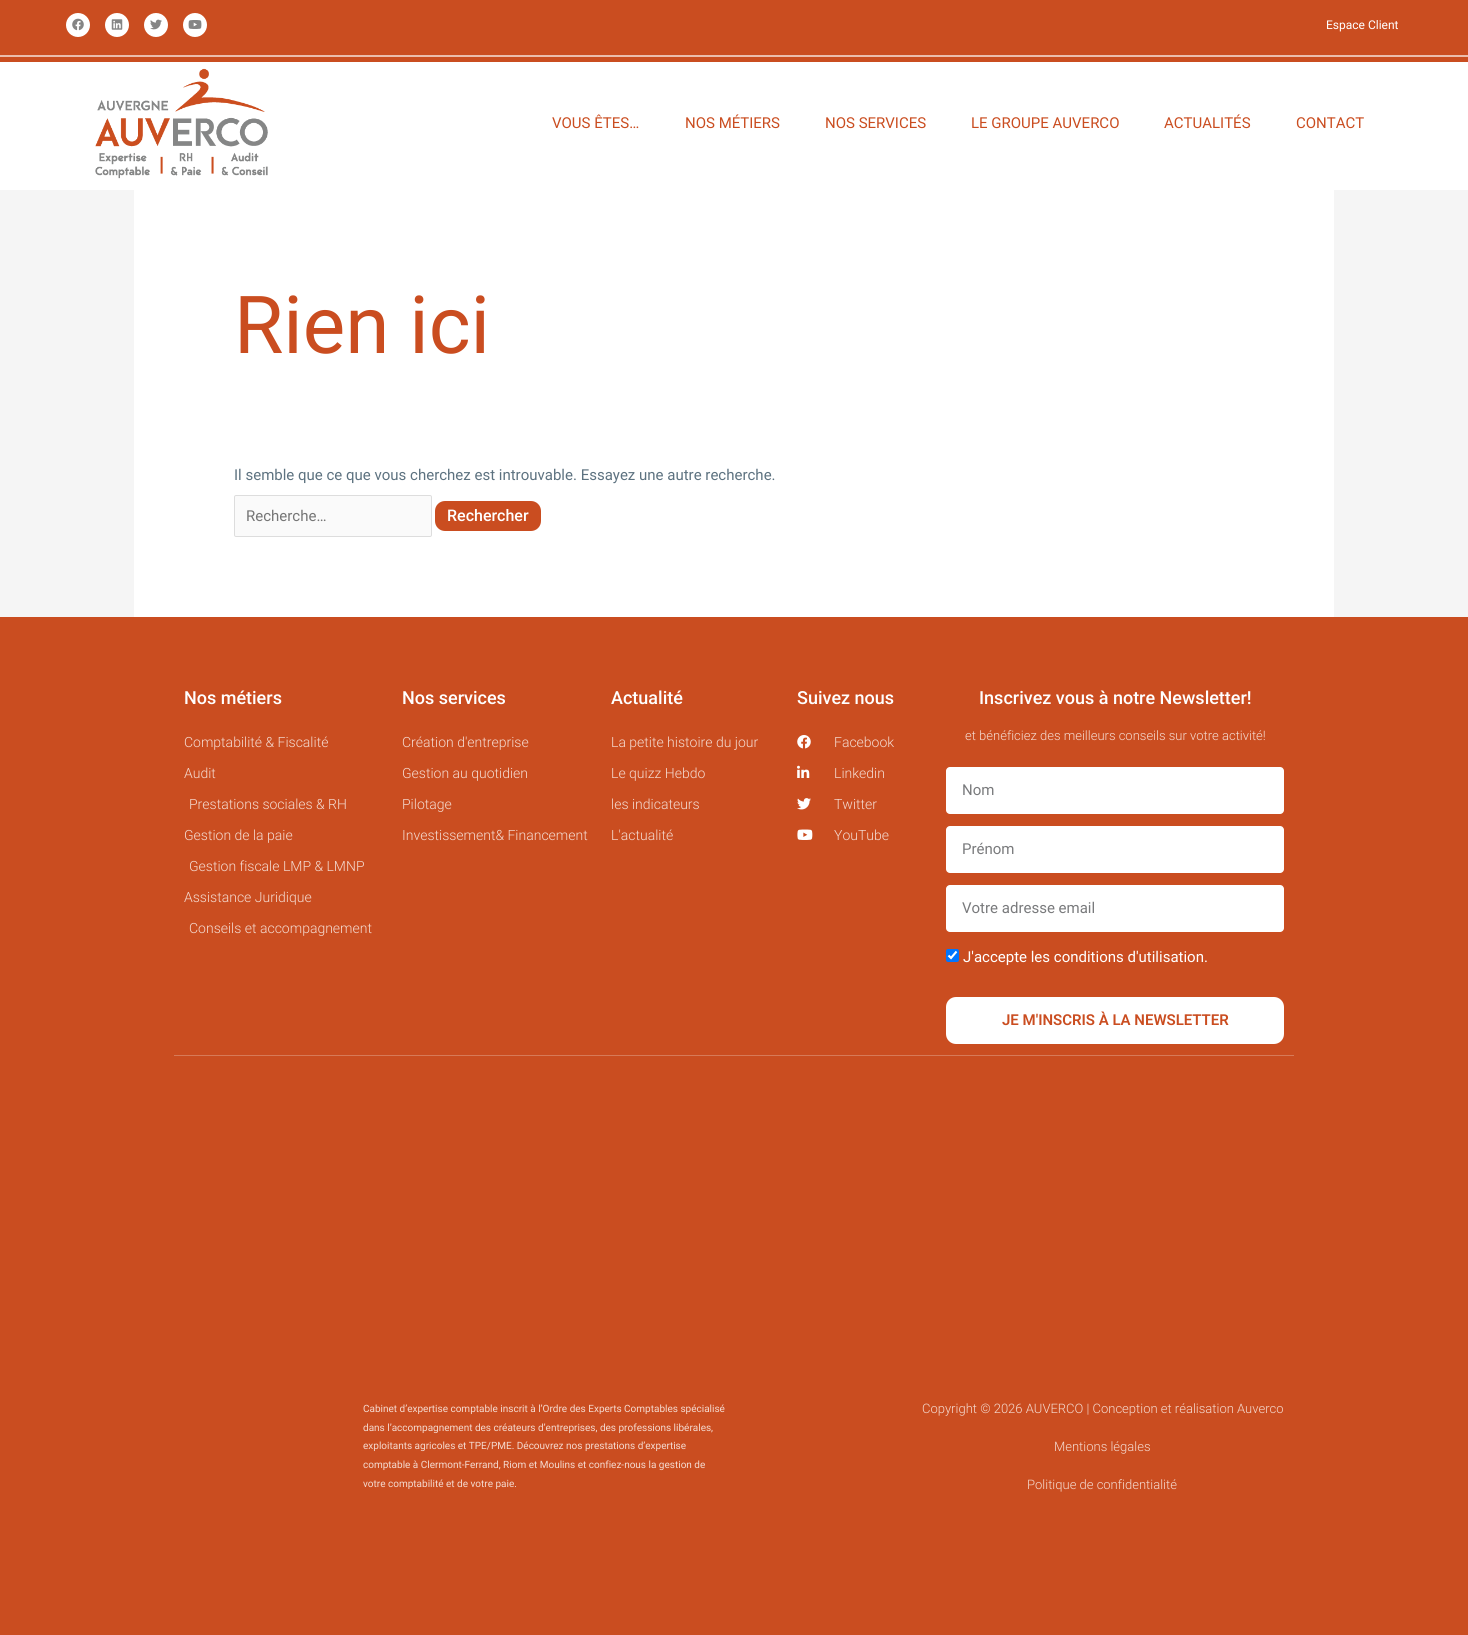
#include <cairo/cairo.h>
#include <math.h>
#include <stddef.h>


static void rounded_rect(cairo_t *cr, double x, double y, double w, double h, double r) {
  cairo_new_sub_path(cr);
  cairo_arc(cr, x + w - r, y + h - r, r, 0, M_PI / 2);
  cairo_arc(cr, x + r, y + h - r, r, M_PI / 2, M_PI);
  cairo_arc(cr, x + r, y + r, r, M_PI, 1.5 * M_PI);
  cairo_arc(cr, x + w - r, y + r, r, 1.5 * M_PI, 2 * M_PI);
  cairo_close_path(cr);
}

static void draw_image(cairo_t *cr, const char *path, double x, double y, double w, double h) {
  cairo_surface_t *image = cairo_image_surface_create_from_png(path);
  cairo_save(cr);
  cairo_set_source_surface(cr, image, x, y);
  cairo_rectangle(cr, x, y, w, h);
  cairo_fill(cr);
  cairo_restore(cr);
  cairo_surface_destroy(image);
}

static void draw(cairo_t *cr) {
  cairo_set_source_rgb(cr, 245 / 255.0, 245 / 255.0, 245 / 255.0);
  cairo_paint(cr);
  cairo_set_source_rgb(cr, 202 / 255.0, 77 / 255.0, 32 / 255.0);
  cairo_rectangle(cr, 0, 0, 1468, 62);
  cairo_fill(cr);
  cairo_set_source_rgb(cr, 1, 1, 1);
  cairo_arc(cr, 78, 25, 12, 0, 2 * M_PI);
  cairo_fill(cr);
  draw_image(cr, "images/1.png", 72, 18, 12, 13);
  cairo_arc(cr, 117, 25, 12, 0, 2 * M_PI);
  cairo_fill(cr);
  draw_image(cr, "images/2.png", 111, 19, 12, 11);
  cairo_arc(cr, 156, 25, 12, 0, 2 * M_PI);
  cairo_fill(cr);
  draw_image(cr, "images/3.png", 150, 19, 12, 11);
  cairo_arc(cr, 195, 25, 12, 0, 2 * M_PI);
  cairo_fill(cr);
  draw_image(cr, "images/4.png", 188, 20, 14, 9);
  cairo_set_source_rgb(cr, 235 / 255.0, 189 / 255.0, 172 / 255.0);
  cairo_rectangle(cr, 0, 55, 1468, 2);
  cairo_fill(cr);
  cairo_set_source_rgb(cr, 1, 1, 1);
  cairo_rectangle(cr, 0, 62, 1468, 128);
  cairo_fill(cr);
  draw_image(cr, "images/5.png", 95, 68, 173, 111);
  cairo_rectangle(cr, 134, 190, 1200, 427);
  cairo_fill(cr);
  cairo_set_source_rgb(cr, 250 / 255.0, 250 / 255.0, 250 / 255.0);
  rounded_rect(cr, 234.5, 495.5, 197, 41, 1.5);
  cairo_fill_preserve(cr);
  cairo_set_source_rgb(cr, 221 / 255.0, 221 / 255.0, 221 / 255.0);
  cairo_set_line_width(cr, 1);
  cairo_stroke(cr);
  cairo_set_source_rgb(cr, 202 / 255.0, 77 / 255.0, 32 / 255.0);
  rounded_rect(cr, 436, 502, 104, 28, 9);
  cairo_fill_preserve(cr);
  cairo_set_line_width(cr, 2);
  cairo_stroke(cr);
  cairo_rectangle(cr, 0, 617, 1468, 1018);
  cairo_fill(cr);
  draw_image(cr, "images/6.png", 797, 735, 14, 14);
  draw_image(cr, "images/7.png", 797, 765, 13, 13);
  draw_image(cr, "images/8.png", 797, 798, 14, 12);
  draw_image(cr, "images/9.png", 797, 829, 16, 11);
  cairo_set_source_rgb(cr, 1, 1, 1);
  rounded_rect(cr, 946, 767, 338, 47, 4);
  cairo_fill(cr);
  rounded_rect(cr, 946, 826, 338, 47, 4);
  cairo_fill(cr);
  rounded_rect(cr, 946, 885, 338, 47, 4);
  cairo_fill(cr);
  cairo_set_source_rgb(cr, 0, 117 / 255.0, 1);
  rounded_rect(cr, 946, 949, 13, 13, 2);
  cairo_fill(cr);
  cairo_new_path(cr);
  cairo_move_to(cr, 948.5, 955.5);
  cairo_line_to(cr, 951, 958);
  cairo_line_to(cr, 956.5, 951.5);
  cairo_set_source_rgb(cr, 1, 1, 1);
  cairo_set_line_width(cr, 2.1);
  cairo_stroke(cr);
  rounded_rect(cr, 946, 997, 338, 47, 10);
  cairo_fill(cr);
  cairo_set_source_rgb(cr, 215 / 255.0, 122 / 255.0, 88 / 255.0);
  cairo_rectangle(cr, 174, 1055, 1120, 1);
  cairo_fill(cr);
  cairo_select_font_face(cr, "Roboto", CAIRO_FONT_SLANT_NORMAL, CAIRO_FONT_WEIGHT_NORMAL);
  cairo_set_font_size(cr, 12);
  cairo_set_source_rgb(cr, 1, 1, 1);
  cairo_move_to(cr, 1326, 29);
  cairo_show_text(cr, "Espace Client");
  cairo_set_font_size(cr, 15);
  cairo_set_source_rgb(cr, 202 / 255.0, 77 / 255.0, 32 / 255.0);
  cairo_move_to(cr, 552, 128);
  cairo_show_text(cr, "VOUS ÊTES…");
  cairo_move_to(cr, 685, 128);
  cairo_show_text(cr, "NOS MÉTIERS");
  cairo_move_to(cr, 825, 128);
  cairo_show_text(cr, "NOS SERVICES");
  cairo_move_to(cr, 971, 128);
  cairo_show_text(cr, "LE GROUPE AUVERCO");
  cairo_move_to(cr, 1164, 128);
  cairo_show_text(cr, "ACTUALITÉS");
  cairo_move_to(cr, 1296, 128);
  cairo_show_text(cr, "CONTACT");
  cairo_set_font_size(cr, 80);
  cairo_move_to(cr, 234, 353);
  cairo_show_text(cr, "Rien ici");
  cairo_set_font_size(cr, 15);
  cairo_set_source_rgb(cr, 93 / 255.0, 114 / 255.0, 128 / 255.0);
  cairo_move_to(cr, 234, 480);
  cairo_show_text(cr, "Il semble que ce que vous cherchez est introuvable. Essayez une autre recherche.");
  cairo_set_source_rgb(cr, 117 / 255.0, 117 / 255.0, 117 / 255.0);
  cairo_move_to(cr, 246, 521);
  cairo_show_text(cr, "Recherche…");
  cairo_select_font_face(cr, "Roboto Medium", CAIRO_FONT_SLANT_NORMAL, CAIRO_FONT_WEIGHT_NORMAL);
  cairo_set_font_size(cr, 16);
  cairo_set_source_rgb(cr, 1, 1, 1);
  cairo_move_to(cr, 447, 521);
  cairo_show_text(cr, "Rechercher");
  cairo_set_font_size(cr, 18);
  cairo_move_to(cr, 184, 704);
  cairo_show_text(cr, "Nos métiers");
  cairo_select_font_face(cr, "Roboto Light", CAIRO_FONT_SLANT_NORMAL, CAIRO_FONT_WEIGHT_NORMAL);
  cairo_set_font_size(cr, 14);
  cairo_set_source_rgb(cr, 244 / 255.0, 218 / 255.0, 208 / 255.0);
  cairo_move_to(cr, 184, 747);
  cairo_show_text(cr, "Comptabilité & Fiscalité");
  cairo_move_to(cr, 184, 778);
  cairo_show_text(cr, "Audit");
  cairo_move_to(cr, 189, 809);
  cairo_show_text(cr, "Prestations sociales & RH");
  cairo_move_to(cr, 184, 840);
  cairo_show_text(cr, "Gestion de la paie");
  cairo_move_to(cr, 189, 871);
  cairo_show_text(cr, "Gestion fiscale LMP & LMNP");
  cairo_move_to(cr, 184, 902);
  cairo_show_text(cr, "Assistance Juridique");
  cairo_move_to(cr, 189, 933);
  cairo_show_text(cr, "Conseils et accompagnement");
  cairo_select_font_face(cr, "Roboto Medium", CAIRO_FONT_SLANT_NORMAL, CAIRO_FONT_WEIGHT_NORMAL);
  cairo_set_font_size(cr, 18);
  cairo_set_source_rgb(cr, 1, 1, 1);
  cairo_move_to(cr, 402, 704);
  cairo_show_text(cr, "Nos services");
  cairo_select_font_face(cr, "Roboto Light", CAIRO_FONT_SLANT_NORMAL, CAIRO_FONT_WEIGHT_NORMAL);
  cairo_set_font_size(cr, 14);
  cairo_set_source_rgb(cr, 244 / 255.0, 218 / 255.0, 208 / 255.0);
  cairo_move_to(cr, 402, 747);
  cairo_show_text(cr, "Création d'entreprise");
  cairo_move_to(cr, 402, 778);
  cairo_show_text(cr, "Gestion au quotidien");
  cairo_move_to(cr, 402, 809);
  cairo_show_text(cr, "Pilotage");
  cairo_move_to(cr, 402, 840);
  cairo_show_text(cr, "Investissement& Financement");
  cairo_select_font_face(cr, "Roboto Medium", CAIRO_FONT_SLANT_NORMAL, CAIRO_FONT_WEIGHT_NORMAL);
  cairo_set_font_size(cr, 18);
  cairo_set_source_rgb(cr, 1, 1, 1);
  cairo_move_to(cr, 611, 704);
  cairo_show_text(cr, "Actualité");
  cairo_select_font_face(cr, "Roboto Light", CAIRO_FONT_SLANT_NORMAL, CAIRO_FONT_WEIGHT_NORMAL);
  cairo_set_font_size(cr, 14);
  cairo_set_source_rgb(cr, 244 / 255.0, 218 / 255.0, 208 / 255.0);
  cairo_move_to(cr, 611, 747);
  cairo_show_text(cr, "La petite histoire du jour");
  cairo_move_to(cr, 611, 778);
  cairo_show_text(cr, "Le quizz Hebdo");
  cairo_move_to(cr, 611, 809);
  cairo_show_text(cr, "les indicateurs");
  cairo_move_to(cr, 611, 840);
  cairo_show_text(cr, "L'actualité");
  cairo_select_font_face(cr, "Roboto Medium", CAIRO_FONT_SLANT_NORMAL, CAIRO_FONT_WEIGHT_NORMAL);
  cairo_set_font_size(cr, 18);
  cairo_set_source_rgb(cr, 1, 1, 1);
  cairo_move_to(cr, 797, 704);
  cairo_show_text(cr, "Suivez nous");
  cairo_select_font_face(cr, "Roboto Light", CAIRO_FONT_SLANT_NORMAL, CAIRO_FONT_WEIGHT_NORMAL);
  cairo_set_font_size(cr, 14);
  cairo_set_source_rgb(cr, 244 / 255.0, 218 / 255.0, 208 / 255.0);
  cairo_move_to(cr, 834, 747);
  cairo_show_text(cr, "Facebook");
  cairo_move_to(cr, 834, 778);
  cairo_show_text(cr, "Linkedin");
  cairo_move_to(cr, 834, 809);
  cairo_show_text(cr, "Twitter");
  cairo_move_to(cr, 834, 840);
  cairo_show_text(cr, "YouTube");
  cairo_select_font_face(cr, "Roboto Medium", CAIRO_FONT_SLANT_NORMAL, CAIRO_FONT_WEIGHT_NORMAL);
  cairo_set_font_size(cr, 18);
  cairo_set_source_rgb(cr, 1, 1, 1);
  cairo_move_to(cr, 979, 704);
  cairo_show_text(cr, "Inscrivez vous à notre Newsletter!");
  cairo_select_font_face(cr, "Roboto Light", CAIRO_FONT_SLANT_NORMAL, CAIRO_FONT_WEIGHT_NORMAL);
  cairo_set_font_size(cr, 13);
  cairo_set_source_rgb(cr, 244 / 255.0, 218 / 255.0, 208 / 255.0);
  cairo_move_to(cr, 965, 740);
  cairo_show_text(cr, "et bénéficiez des meilleurs conseils sur votre activité!");
  cairo_select_font_face(cr, "Roboto", CAIRO_FONT_SLANT_NORMAL, CAIRO_FONT_WEIGHT_NORMAL);
  cairo_set_font_size(cr, 15);
  cairo_set_source_rgb(cr, 121 / 255.0, 122 / 255.0, 124 / 255.0);
  cairo_move_to(cr, 962, 795);
  cairo_show_text(cr, "Nom");
  cairo_move_to(cr, 962, 854);
  cairo_show_text(cr, "Prénom");
  cairo_move_to(cr, 962, 913);
  cairo_show_text(cr, "Votre adresse email");
  cairo_set_source_rgb(cr, 1, 1, 1);
  cairo_move_to(cr, 963, 962);
  cairo_show_text(cr, "J'accepte les conditions d'utilisation.");
  cairo_select_font_face(cr, "Roboto SemiBold", CAIRO_FONT_SLANT_NORMAL, CAIRO_FONT_WEIGHT_NORMAL);
  cairo_set_source_rgb(cr, 202 / 255.0, 77 / 255.0, 32 / 255.0);
  cairo_move_to(cr, 1002, 1025);
  cairo_show_text(cr, "JE M'INSCRIS À LA NEWSLETTER");
  cairo_select_font_face(cr, "Roboto", CAIRO_FONT_SLANT_NORMAL, CAIRO_FONT_WEIGHT_NORMAL);
  cairo_set_font_size(cr, 10);
  cairo_set_source_rgb(cr, 244 / 255.0, 218 / 255.0, 208 / 255.0);
  cairo_move_to(cr, 363, 1412);
  cairo_show_text(cr, "Cabinet d’expertise comptable inscrit à l’Ordre des Experts Comptables spécialisé");
  cairo_move_to(cr, 363, 1431);
  cairo_show_text(cr, "dans l’accompagnement des créateurs d’entreprises, des professions libérales,");
  cairo_move_to(cr, 363, 1449);
  cairo_show_text(cr, "exploitants agricoles et TPE/PME. Découvrez nos prestations d’expertise");
  cairo_move_to(cr, 363, 1468);
  cairo_show_text(cr, "comptable à Clermont-Ferrand, Riom et Moulins et confiez-nous la gestion de");
  cairo_move_to(cr, 363, 1487);
  cairo_show_text(cr, "votre comptabilité et de votre paie.");
  cairo_select_font_face(cr, "Roboto Light", CAIRO_FONT_SLANT_NORMAL, CAIRO_FONT_WEIGHT_NORMAL);
  cairo_set_font_size(cr, 13);
  cairo_move_to(cr, 922, 1413);
  cairo_show_text(cr, "Copyright © 2026 AUVERCO | Conception et réalisation Auverco");
  cairo_move_to(cr, 1054, 1451);
  cairo_show_text(cr, "Mentions légales");
  cairo_move_to(cr, 1027, 1489);
  cairo_show_text(cr, "Politique de confidentialité");
}

int main(void) {
  cairo_surface_t *surface = cairo_image_surface_create(CAIRO_FORMAT_RGB24, 1468, 1635);
  cairo_t *cr = cairo_create(surface);
  cairo_font_options_t *options = cairo_font_options_create();
  cairo_font_options_set_hint_metrics(options, CAIRO_HINT_METRICS_OFF);
  cairo_font_options_set_hint_style(options, CAIRO_HINT_STYLE_NONE);
  cairo_set_font_options(cr, options);
  cairo_set_miter_limit(cr, 4);
  draw(cr);
  cairo_surface_write_to_png(surface, "out.png");
  cairo_font_options_destroy(options);
  cairo_destroy(cr);
  cairo_surface_destroy(surface);
  return 0;
}
